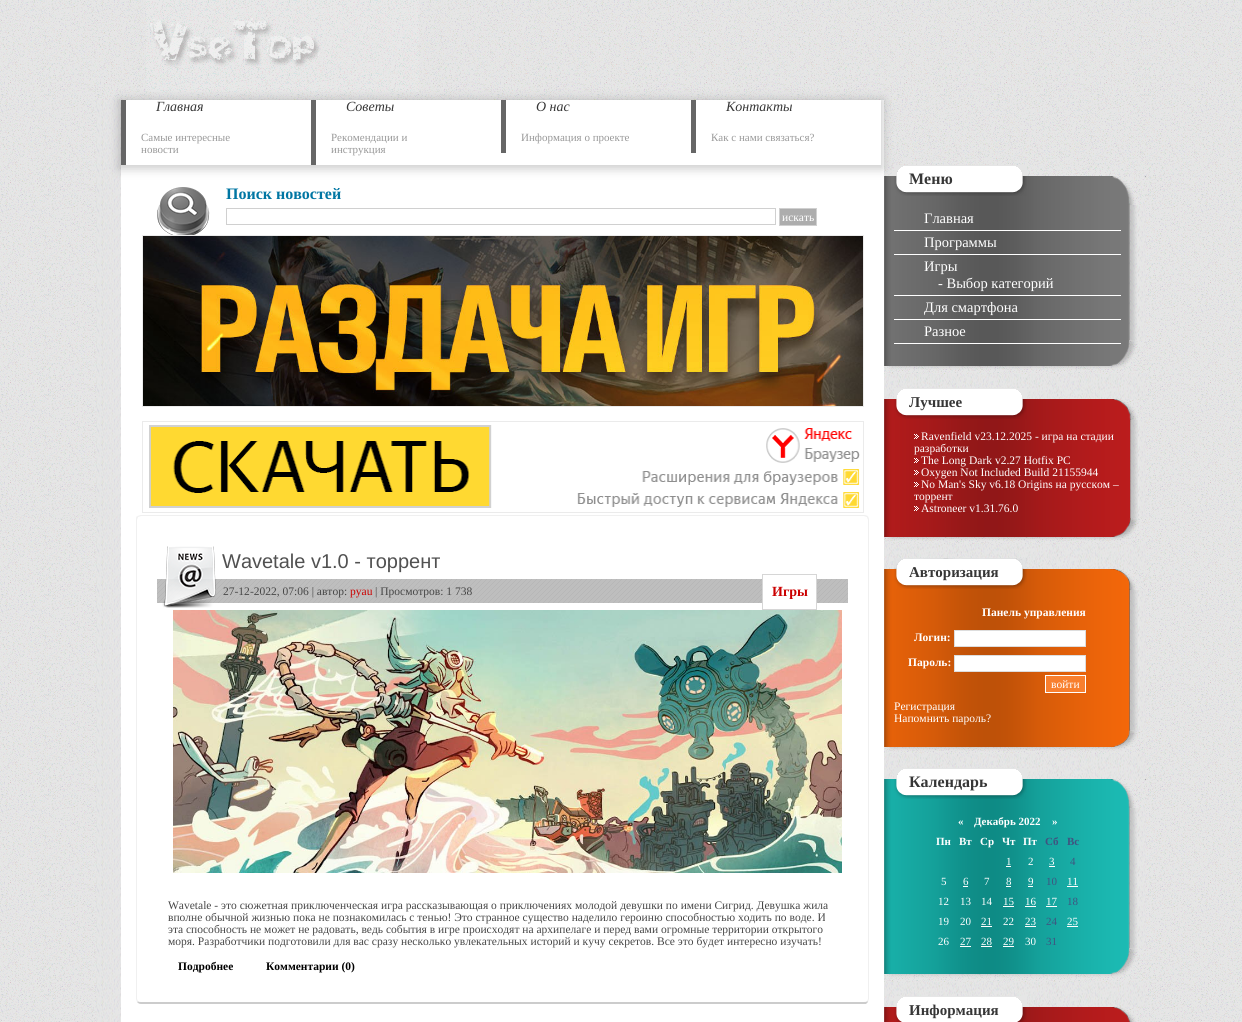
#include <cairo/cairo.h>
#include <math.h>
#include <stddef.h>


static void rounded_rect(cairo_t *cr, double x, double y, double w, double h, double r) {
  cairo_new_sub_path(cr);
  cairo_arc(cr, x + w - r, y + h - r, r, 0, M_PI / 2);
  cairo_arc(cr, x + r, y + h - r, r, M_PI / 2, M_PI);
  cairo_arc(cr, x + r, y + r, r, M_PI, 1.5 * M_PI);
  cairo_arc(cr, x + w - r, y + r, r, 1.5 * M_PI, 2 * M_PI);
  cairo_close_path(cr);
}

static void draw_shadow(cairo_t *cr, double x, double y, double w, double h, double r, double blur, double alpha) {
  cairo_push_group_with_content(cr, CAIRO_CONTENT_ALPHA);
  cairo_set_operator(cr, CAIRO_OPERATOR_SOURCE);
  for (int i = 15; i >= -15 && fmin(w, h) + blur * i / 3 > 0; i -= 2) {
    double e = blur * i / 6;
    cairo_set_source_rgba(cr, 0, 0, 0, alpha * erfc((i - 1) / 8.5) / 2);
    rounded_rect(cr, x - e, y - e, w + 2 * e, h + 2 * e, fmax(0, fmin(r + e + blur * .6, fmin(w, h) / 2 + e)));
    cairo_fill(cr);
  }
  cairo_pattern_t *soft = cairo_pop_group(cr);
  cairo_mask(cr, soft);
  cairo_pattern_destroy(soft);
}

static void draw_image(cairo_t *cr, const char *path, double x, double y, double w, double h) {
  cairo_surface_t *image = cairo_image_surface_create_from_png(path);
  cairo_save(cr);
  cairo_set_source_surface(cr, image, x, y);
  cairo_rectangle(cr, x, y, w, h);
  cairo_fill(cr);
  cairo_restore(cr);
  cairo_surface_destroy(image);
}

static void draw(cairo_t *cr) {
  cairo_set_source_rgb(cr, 230 / 255.0, 230 / 255.0, 230 / 255.0);
  cairo_paint(cr);
  draw_image(cr, "images/1.png", 0, 0, 1242, 1022);
  cairo_set_source_rgb(cr, 1, 1, 1);
  cairo_rectangle(cr, 121, 100, 763, 922);
  cairo_fill(cr);
  draw_image(cr, "images/2.png", 884, 205, 262, 802);
  draw_image(cr, "images/3.png", 96, 100, 25, 922);
  cairo_set_source_rgb(cr, 230 / 255.0, 230 / 255.0, 230 / 255.0);
  cairo_rectangle(cr, 96, 0, 1050, 100);
  cairo_fill(cr);
  draw_image(cr, "images/4.png", 96, 0, 1050, 100);
  draw_image(cr, "images/5.png", 146, 0, 273, 92);
  draw_image(cr, "images/12.png", 884, 100, 262, 76);
  draw_image(cr, "images/13.png", 884, 176, 253, 164);
  cairo_save(cr);
  cairo_set_fill_rule(cr, CAIRO_FILL_RULE_EVEN_ODD);
  cairo_new_path(cr);
  cairo_move_to(cr, 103, 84);
  cairo_line_to(cr, 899, 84);
  cairo_line_to(cr, 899, 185);
  cairo_line_to(cr, 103, 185);
  cairo_close_path(cr);
  cairo_move_to(cr, 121, 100);
  cairo_line_to(cr, 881, 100);
  cairo_line_to(cr, 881, 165);
  cairo_line_to(cr, 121, 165);
  cairo_close_path(cr);
  cairo_clip(cr);
  cairo_set_source_rgb(cr, 0, 0, 0);
  draw_shadow(cr, 119, 100, 764, 69, 0, 5, 0.2);
  cairo_restore(cr);
  cairo_set_source_rgb(cr, 102 / 255.0, 102 / 255.0, 102 / 255.0);
  cairo_rectangle(cr, 121, 100, 5, 65);
  cairo_fill(cr);
  cairo_rectangle(cr, 311, 100, 5, 65);
  cairo_fill(cr);
  cairo_rectangle(cr, 501, 100, 5, 53);
  cairo_fill(cr);
  cairo_rectangle(cr, 691, 100, 5, 53);
  cairo_fill(cr);
  draw_image(cr, "images/6.png", 157, 187, 53, 48);
  cairo_rectangle(cr, 226.5, 208.5, 549, 16);
  cairo_set_source_rgb(cr, 208 / 255.0, 208 / 255.0, 208 / 255.0);
  cairo_set_line_width(cr, 1);
  cairo_stroke(cr);
  cairo_set_source_rgb(cr, 173 / 255.0, 173 / 255.0, 173 / 255.0);
  cairo_rectangle(cr, 779.5, 208.5, 37, 17);
  cairo_fill_preserve(cr);
  cairo_set_source_rgb(cr, 208 / 255.0, 208 / 255.0, 208 / 255.0);
  cairo_stroke(cr);
  cairo_rectangle(cr, 142.5, 235.5, 721, 171);
  cairo_set_source_rgb(cr, 235 / 255.0, 235 / 255.0, 235 / 255.0);
  cairo_stroke(cr);
  draw_image(cr, "images/7.png", 143, 236, 720, 170);
  cairo_rectangle(cr, 142.5, 421.5, 721, 91);
  cairo_stroke(cr);
  draw_image(cr, "images/8.png", 149, 425, 711, 83);
  cairo_set_source_rgb(cr, 240 / 255.0, 240 / 255.0, 240 / 255.0);
  cairo_new_path(cr);
  cairo_move_to(cr, 141, 515);
  cairo_curve_to(cr, 140, 515, 138, 516, 137, 516);
  cairo_line_to(cr, 138, 517);
  cairo_line_to(cr, 141, 516);
  cairo_line_to(cr, 864, 516);
  cairo_line_to(cr, 867, 517);
  cairo_line_to(cr, 868, 516);
  cairo_curve_to(cr, 867, 516, 866, 515, 864, 515);
  cairo_close_path(cr);
  cairo_fill(cr);
  cairo_new_path(cr);
  cairo_move_to(cr, 869, 999);
  cairo_line_to(cr, 869, 520);
  cairo_curve_to(cr, 869, 518, 868, 517, 868, 516);
  cairo_line_to(cr, 867, 517);
  cairo_line_to(cr, 868, 520);
  cairo_line_to(cr, 868, 999);
  cairo_line_to(cr, 867, 1001);
  cairo_line_to(cr, 868, 1002);
  cairo_close_path(cr);
  cairo_fill(cr);
  cairo_set_source_rgb(cr, 204 / 255.0, 204 / 255.0, 204 / 255.0);
  cairo_new_path(cr);
  cairo_move_to(cr, 141, 1004);
  cairo_line_to(cr, 866, 1004);
  cairo_line_to(cr, 868, 1002);
  cairo_line_to(cr, 867, 1001);
  cairo_curve_to(cr, 867, 1002, 865, 1002, 864, 1002);
  cairo_line_to(cr, 141, 1002);
  cairo_curve_to(cr, 140, 1002, 138, 1002, 138, 1001);
  cairo_line_to(cr, 137, 1002);
  cairo_curve_to(cr, 138, 1003, 139, 1004, 141, 1004);
  cairo_close_path(cr);
  cairo_fill(cr);
  cairo_set_source_rgb(cr, 240 / 255.0, 240 / 255.0, 240 / 255.0);
  cairo_new_path(cr);
  cairo_move_to(cr, 136, 520);
  cairo_line_to(cr, 136, 999);
  cairo_line_to(cr, 137, 1002);
  cairo_line_to(cr, 138, 1001);
  cairo_line_to(cr, 137, 999);
  cairo_line_to(cr, 137, 520);
  cairo_line_to(cr, 138, 517);
  cairo_line_to(cr, 137, 516);
  cairo_curve_to(cr, 136, 517, 136, 518, 136, 520);
  cairo_close_path(cr);
  cairo_fill(cr);
  draw_image(cr, "images/10.png", 157, 579, 691, 24);
  draw_image(cr, "images/9.png", 162, 546, 54, 62);
  cairo_set_source_rgb(cr, 1, 1, 1);
  cairo_rectangle(cr, 763, 579, 53, 24);
  cairo_fill(cr);
  cairo_rectangle(cr, 762.5, 574.5, 54, 35);
  cairo_set_source_rgb(cr, 214 / 255.0, 214 / 255.0, 214 / 255.0);
  cairo_stroke(cr);
  draw_image(cr, "images/11.png", 173, 610, 669, 263);
  draw_image(cr, "images/14.png", 1111, 176, 35, 29);
  draw_image(cr, "images/15.png", 884, 340, 262, 34);
  draw_image(cr, "images/16.png", 894, 165, 133, 31);
  cairo_set_source_rgb(cr, 1, 1, 1);
  cairo_rectangle(cr, 894, 230, 227, 1);
  cairo_fill(cr);
  cairo_rectangle(cr, 894, 254, 227, 1);
  cairo_fill(cr);
  cairo_rectangle(cr, 894, 295, 227, 1);
  cairo_fill(cr);
  cairo_rectangle(cr, 894, 319, 227, 1);
  cairo_fill(cr);
  cairo_rectangle(cr, 894, 343, 227, 1);
  cairo_fill(cr);
  draw_image(cr, "images/17.png", 884, 399, 254, 119);
  draw_image(cr, "images/18.png", 1112, 399, 34, 21);
  draw_image(cr, "images/19.png", 884, 518, 262, 26);
  draw_image(cr, "images/20.png", 894, 388, 133, 31);
  draw_image(cr, "images/21.png", 914, 434, 5, 5);
  draw_image(cr, "images/21.png", 914, 458, 5, 5);
  draw_image(cr, "images/21.png", 914, 470, 5, 5);
  draw_image(cr, "images/21.png", 914, 482, 5, 5);
  draw_image(cr, "images/21.png", 914, 506, 5, 5);
  draw_image(cr, "images/22.png", 884, 569, 254, 161);
  draw_image(cr, "images/23.png", 1110, 569, 36, 21);
  draw_image(cr, "images/24.png", 884, 730, 262, 24);
  draw_image(cr, "images/25.png", 894, 558, 133, 31);
  cairo_rectangle(cr, 954.5, 630.5, 131, 16);
  cairo_fill_preserve(cr);
  cairo_set_source_rgb(cr, 221 / 255.0, 221 / 255.0, 221 / 255.0);
  cairo_stroke(cr);
  cairo_set_source_rgb(cr, 1, 1, 1);
  cairo_rectangle(cr, 954.5, 655.5, 131, 16);
  cairo_fill_preserve(cr);
  cairo_set_source_rgb(cr, 221 / 255.0, 221 / 255.0, 221 / 255.0);
  cairo_stroke(cr);
  cairo_set_source_rgb(cr, 248 / 255.0, 127 / 255.0, 46 / 255.0);
  cairo_rectangle(cr, 1045.5, 675.5, 40, 17);
  cairo_fill_preserve(cr);
  cairo_set_source_rgb(cr, 1, 1, 1);
  cairo_stroke(cr);
  draw_image(cr, "images/26.png", 884, 779, 253, 169);
  draw_image(cr, "images/27.png", 1111, 779, 35, 29);
  draw_image(cr, "images/28.png", 884, 948, 262, 34);
  draw_image(cr, "images/29.png", 894, 768, 133, 31);
  cairo_rectangle(cr, 1006, 866, 5, 1);
  cairo_fill(cr);
  cairo_rectangle(cr, 1049, 866, 6, 1);
  cairo_fill(cr);
  cairo_rectangle(cr, 963, 886, 5, 1);
  cairo_fill(cr);
  cairo_rectangle(cr, 1006, 886, 5, 1);
  cairo_fill(cr);
  cairo_rectangle(cr, 1028, 886, 5, 1);
  cairo_fill(cr);
  cairo_rectangle(cr, 1067, 886, 11, 1);
  cairo_fill(cr);
  cairo_rectangle(cr, 1003, 906, 11, 1);
  cairo_fill(cr);
  cairo_rectangle(cr, 1025, 906, 11, 1);
  cairo_fill(cr);
  cairo_rectangle(cr, 1046, 906, 11, 1);
  cairo_fill(cr);
  cairo_rectangle(cr, 981, 926, 11, 1);
  cairo_fill(cr);
  cairo_rectangle(cr, 1025, 926, 11, 1);
  cairo_fill(cr);
  cairo_rectangle(cr, 1067, 926, 11, 1);
  cairo_fill(cr);
  cairo_rectangle(cr, 960, 946, 11, 1);
  cairo_fill(cr);
  cairo_rectangle(cr, 981, 946, 11, 1);
  cairo_fill(cr);
  cairo_rectangle(cr, 1003, 946, 11, 1);
  cairo_fill(cr);
  draw_image(cr, "images/30.png", 884, 1007, 228, 15);
  draw_image(cr, "images/31.png", 1112, 1007, 34, 15);
  draw_image(cr, "images/32.png", 894, 996, 133, 26);
  cairo_select_font_face(cr, "Liberation Serif", CAIRO_FONT_SLANT_ITALIC, CAIRO_FONT_WEIGHT_NORMAL);
  cairo_set_font_size(cr, 14);
  cairo_set_source_rgb(cr, 54 / 255.0, 54 / 255.0, 54 / 255.0);
  cairo_move_to(cr, 156, 111);
  cairo_show_text(cr, "Главная");
  cairo_select_font_face(cr, "Liberation Serif", CAIRO_FONT_SLANT_NORMAL, CAIRO_FONT_WEIGHT_NORMAL);
  cairo_set_font_size(cr, 11);
  cairo_set_source_rgb(cr, 153 / 255.0, 153 / 255.0, 153 / 255.0);
  cairo_move_to(cr, 141, 141);
  cairo_show_text(cr, "Самые интересные");
  cairo_move_to(cr, 141, 153);
  cairo_show_text(cr, "новости");
  cairo_select_font_face(cr, "Liberation Serif", CAIRO_FONT_SLANT_ITALIC, CAIRO_FONT_WEIGHT_NORMAL);
  cairo_set_font_size(cr, 14);
  cairo_set_source_rgb(cr, 54 / 255.0, 54 / 255.0, 54 / 255.0);
  cairo_move_to(cr, 346, 111);
  cairo_show_text(cr, "Советы");
  cairo_select_font_face(cr, "Liberation Serif", CAIRO_FONT_SLANT_NORMAL, CAIRO_FONT_WEIGHT_NORMAL);
  cairo_set_font_size(cr, 11);
  cairo_set_source_rgb(cr, 153 / 255.0, 153 / 255.0, 153 / 255.0);
  cairo_move_to(cr, 331, 141);
  cairo_show_text(cr, "Рекомендации и");
  cairo_move_to(cr, 331, 153);
  cairo_show_text(cr, "инструкция");
  cairo_select_font_face(cr, "Liberation Serif", CAIRO_FONT_SLANT_ITALIC, CAIRO_FONT_WEIGHT_NORMAL);
  cairo_set_font_size(cr, 14);
  cairo_set_source_rgb(cr, 54 / 255.0, 54 / 255.0, 54 / 255.0);
  cairo_move_to(cr, 536, 111);
  cairo_show_text(cr, "О нас");
  cairo_select_font_face(cr, "Liberation Serif", CAIRO_FONT_SLANT_NORMAL, CAIRO_FONT_WEIGHT_NORMAL);
  cairo_set_font_size(cr, 11);
  cairo_set_source_rgb(cr, 153 / 255.0, 153 / 255.0, 153 / 255.0);
  cairo_move_to(cr, 521, 141);
  cairo_show_text(cr, "Информация о проекте");
  cairo_select_font_face(cr, "Liberation Serif", CAIRO_FONT_SLANT_ITALIC, CAIRO_FONT_WEIGHT_NORMAL);
  cairo_set_font_size(cr, 14);
  cairo_set_source_rgb(cr, 54 / 255.0, 54 / 255.0, 54 / 255.0);
  cairo_move_to(cr, 726, 111);
  cairo_show_text(cr, "Контакты");
  cairo_select_font_face(cr, "Liberation Serif", CAIRO_FONT_SLANT_NORMAL, CAIRO_FONT_WEIGHT_NORMAL);
  cairo_set_font_size(cr, 11);
  cairo_set_source_rgb(cr, 153 / 255.0, 153 / 255.0, 153 / 255.0);
  cairo_move_to(cr, 711, 141);
  cairo_show_text(cr, "Как с нами связаться?");
  cairo_select_font_face(cr, "Liberation Serif", CAIRO_FONT_SLANT_NORMAL, CAIRO_FONT_WEIGHT_BOLD);
  cairo_set_font_size(cr, 16);
  cairo_set_source_rgb(cr, 0, 118 / 255.0, 163 / 255.0);
  cairo_move_to(cr, 226, 199);
  cairo_show_text(cr, "Поиск новостей");
  cairo_select_font_face(cr, "Liberation Serif", CAIRO_FONT_SLANT_NORMAL, CAIRO_FONT_WEIGHT_NORMAL);
  cairo_set_font_size(cr, 11.52);
  cairo_set_source_rgb(cr, 1, 1, 1);
  cairo_move_to(cr, 782, 221);
  cairo_show_text(cr, "искать");
  cairo_select_font_face(cr, "Liberation Sans", CAIRO_FONT_SLANT_NORMAL, CAIRO_FONT_WEIGHT_NORMAL);
  cairo_set_font_size(cr, 20);
  cairo_set_source_rgb(cr, 81 / 255.0, 81 / 255.0, 81 / 255.0);
  cairo_move_to(cr, 222, 568);
  cairo_show_text(cr, "Wavetale v1.0 - торрент");
  cairo_select_font_face(cr, "Liberation Serif", CAIRO_FONT_SLANT_NORMAL, CAIRO_FONT_WEIGHT_NORMAL);
  cairo_set_font_size(cr, 11.52);
  cairo_set_source_rgb(cr, 70 / 255.0, 70 / 255.0, 70 / 255.0);
  cairo_move_to(cr, 223, 595);
  cairo_show_text(cr, "27-12-2022, 07:06 | автор:");
  cairo_set_source_rgb(cr, 203 / 255.0, 0, 0);
  cairo_move_to(cr, 350, 595);
  cairo_show_text(cr, "pyau");
  cairo_set_source_rgb(cr, 70 / 255.0, 70 / 255.0, 70 / 255.0);
  cairo_move_to(cr, 375, 595);
  cairo_show_text(cr, "| Просмотров: 1 738");
  cairo_select_font_face(cr, "Liberation Serif", CAIRO_FONT_SLANT_NORMAL, CAIRO_FONT_WEIGHT_BOLD);
  cairo_set_font_size(cr, 14);
  cairo_set_source_rgb(cr, 203 / 255.0, 0, 0);
  cairo_move_to(cr, 772, 596);
  cairo_show_text(cr, "Игры");
  cairo_select_font_face(cr, "Liberation Serif", CAIRO_FONT_SLANT_NORMAL, CAIRO_FONT_WEIGHT_NORMAL);
  cairo_set_font_size(cr, 11.52);
  cairo_set_source_rgb(cr, 70 / 255.0, 70 / 255.0, 70 / 255.0);
  cairo_move_to(cr, 168, 909);
  cairo_show_text(cr, "Wavetale - это сюжетная приключенческая игра рассказывающая о приключениях молодой девушки по имени Сигрид. Девушка жила");
  cairo_move_to(cr, 168, 921);
  cairo_show_text(cr, "вполне обычной жизнью пока не познакомилась с тенью! Это странное существо наделило героиню способностью ходить по воде. И");
  cairo_move_to(cr, 168, 933);
  cairo_show_text(cr, "эта способность не может не радовать, ведь события в игре происходят на архипелаге и перед вами огромные территории открытого");
  cairo_move_to(cr, 168, 945);
  cairo_show_text(cr, "моря. Разработчики подготовили для вас сразу несколько увлекательных историй и кучу секретов. Все это будет интересно изучать!");
  cairo_select_font_face(cr, "Liberation Serif", CAIRO_FONT_SLANT_NORMAL, CAIRO_FONT_WEIGHT_BOLD);
  cairo_set_font_size(cr, 11.5);
  cairo_set_source_rgb(cr, 0, 0, 0);
  cairo_move_to(cr, 178, 970);
  cairo_show_text(cr, "Подробнее");
  cairo_move_to(cr, 266, 970);
  cairo_show_text(cr, "Комментарии (0)");
  cairo_set_font_size(cr, 16);
  cairo_set_source_rgb(cr, 54 / 255.0, 54 / 255.0, 54 / 255.0);
  cairo_move_to(cr, 909, 184);
  cairo_show_text(cr, "Меню");
  cairo_select_font_face(cr, "Liberation Serif", CAIRO_FONT_SLANT_NORMAL, CAIRO_FONT_WEIGHT_NORMAL);
  cairo_set_font_size(cr, 14.5);
  cairo_set_source_rgb(cr, 1, 1, 1);
  cairo_move_to(cr, 924, 223);
  cairo_show_text(cr, "Главная");
  cairo_move_to(cr, 924, 247);
  cairo_show_text(cr, "Программы");
  cairo_move_to(cr, 924, 271);
  cairo_show_text(cr, "Игры");
  cairo_move_to(cr, 938, 288);
  cairo_show_text(cr, "- Выбор категорий");
  cairo_move_to(cr, 924, 312);
  cairo_show_text(cr, "Для смартфона");
  cairo_move_to(cr, 924, 336);
  cairo_show_text(cr, "Разное");
  cairo_select_font_face(cr, "Liberation Serif", CAIRO_FONT_SLANT_NORMAL, CAIRO_FONT_WEIGHT_BOLD);
  cairo_set_font_size(cr, 15);
  cairo_set_source_rgb(cr, 54 / 255.0, 54 / 255.0, 54 / 255.0);
  cairo_move_to(cr, 909, 407);
  cairo_show_text(cr, "Лучшее");
  cairo_select_font_face(cr, "Liberation Serif", CAIRO_FONT_SLANT_NORMAL, CAIRO_FONT_WEIGHT_NORMAL);
  cairo_set_font_size(cr, 11.52);
  cairo_set_source_rgb(cr, 1, 1, 1);
  cairo_move_to(cr, 921, 440);
  cairo_show_text(cr, "Ravenfield v23.12.2025 - игра на стадии");
  cairo_move_to(cr, 914, 452);
  cairo_show_text(cr, "разработки");
  cairo_move_to(cr, 921, 464);
  cairo_show_text(cr, "The Long Dark v2.27 Hotfix PC");
  cairo_move_to(cr, 921, 476);
  cairo_show_text(cr, "Oxygen Not Included Build 21155944");
  cairo_move_to(cr, 921, 488);
  cairo_show_text(cr, "No Man's Sky v6.18 Origins на русском –");
  cairo_move_to(cr, 914, 500);
  cairo_show_text(cr, "торрент");
  cairo_move_to(cr, 921, 512);
  cairo_show_text(cr, "Astroneer v1.31.76.0");
  cairo_select_font_face(cr, "Liberation Serif", CAIRO_FONT_SLANT_NORMAL, CAIRO_FONT_WEIGHT_BOLD);
  cairo_set_font_size(cr, 15);
  cairo_set_source_rgb(cr, 54 / 255.0, 54 / 255.0, 54 / 255.0);
  cairo_move_to(cr, 909, 577);
  cairo_show_text(cr, "Авторизация");
  cairo_set_font_size(cr, 11.52);
  cairo_set_source_rgb(cr, 1, 1, 1);
  cairo_move_to(cr, 982, 616);
  cairo_show_text(cr, "Панель управления");
  cairo_move_to(cr, 914, 641);
  cairo_show_text(cr, "Логин:");
  cairo_move_to(cr, 908, 666);
  cairo_show_text(cr, "Пароль:");
  cairo_select_font_face(cr, "Liberation Serif", CAIRO_FONT_SLANT_NORMAL, CAIRO_FONT_WEIGHT_NORMAL);
  cairo_move_to(cr, 1051, 688);
  cairo_show_text(cr, "войти");
  cairo_move_to(cr, 894, 710);
  cairo_show_text(cr, "Регистрация");
  cairo_move_to(cr, 894, 722);
  cairo_show_text(cr, "Напомнить пароль?");
  cairo_select_font_face(cr, "Liberation Serif", CAIRO_FONT_SLANT_NORMAL, CAIRO_FONT_WEIGHT_BOLD);
  cairo_set_font_size(cr, 16);
  cairo_set_source_rgb(cr, 54 / 255.0, 54 / 255.0, 54 / 255.0);
  cairo_move_to(cr, 909, 787);
  cairo_show_text(cr, "Календарь");
  cairo_set_font_size(cr, 11);
  cairo_set_source_rgb(cr, 1, 1, 1);
  cairo_move_to(cr, 958, 825);
  cairo_show_text(cr, "«");
  cairo_move_to(cr, 974, 825);
  cairo_show_text(cr, "Декабрь 2022");
  cairo_move_to(cr, 1052, 825);
  cairo_show_text(cr, "»");
  cairo_move_to(cr, 936, 845);
  cairo_show_text(cr, "Пн");
  cairo_move_to(cr, 959, 845);
  cairo_show_text(cr, "Вт");
  cairo_move_to(cr, 980, 845);
  cairo_show_text(cr, "Ср");
  cairo_move_to(cr, 1002, 845);
  cairo_show_text(cr, "Чт");
  cairo_move_to(cr, 1023, 845);
  cairo_show_text(cr, "Пт");
  cairo_set_source_rgb(cr, 64 / 255.0, 83 / 255.0, 128 / 255.0);
  cairo_move_to(cr, 1045, 845);
  cairo_show_text(cr, "Сб");
  cairo_move_to(cr, 1067, 845);
  cairo_show_text(cr, "Вс");
  cairo_select_font_face(cr, "Liberation Serif", CAIRO_FONT_SLANT_NORMAL, CAIRO_FONT_WEIGHT_NORMAL);
  cairo_set_source_rgb(cr, 1, 1, 1);
  cairo_move_to(cr, 1006, 865);
  cairo_show_text(cr, "1");
  cairo_move_to(cr, 1028, 865);
  cairo_show_text(cr, "2");
  cairo_move_to(cr, 1049, 865);
  cairo_show_text(cr, "3");
  cairo_set_source_rgb(cr, 64 / 255.0, 83 / 255.0, 128 / 255.0);
  cairo_move_to(cr, 1070, 865);
  cairo_show_text(cr, "4");
  cairo_set_source_rgb(cr, 1, 1, 1);
  cairo_move_to(cr, 941, 885);
  cairo_show_text(cr, "5");
  cairo_move_to(cr, 963, 885);
  cairo_show_text(cr, "6");
  cairo_move_to(cr, 984, 885);
  cairo_show_text(cr, "7");
  cairo_move_to(cr, 1006, 885);
  cairo_show_text(cr, "8");
  cairo_move_to(cr, 1028, 885);
  cairo_show_text(cr, "9");
  cairo_set_source_rgb(cr, 64 / 255.0, 83 / 255.0, 128 / 255.0);
  cairo_move_to(cr, 1046, 885);
  cairo_show_text(cr, "10");
  cairo_set_source_rgb(cr, 1, 1, 1);
  cairo_move_to(cr, 1067, 885);
  cairo_show_text(cr, "11");
  cairo_move_to(cr, 938, 905);
  cairo_show_text(cr, "12");
  cairo_move_to(cr, 960, 905);
  cairo_show_text(cr, "13");
  cairo_move_to(cr, 981, 905);
  cairo_show_text(cr, "14");
  cairo_move_to(cr, 1003, 905);
  cairo_show_text(cr, "15");
  cairo_move_to(cr, 1025, 905);
  cairo_show_text(cr, "16");
  cairo_move_to(cr, 1046, 905);
  cairo_show_text(cr, "17");
  cairo_set_source_rgb(cr, 64 / 255.0, 83 / 255.0, 128 / 255.0);
  cairo_move_to(cr, 1067, 905);
  cairo_show_text(cr, "18");
  cairo_set_source_rgb(cr, 1, 1, 1);
  cairo_move_to(cr, 938, 925);
  cairo_show_text(cr, "19");
  cairo_move_to(cr, 960, 925);
  cairo_show_text(cr, "20");
  cairo_move_to(cr, 981, 925);
  cairo_show_text(cr, "21");
  cairo_move_to(cr, 1003, 925);
  cairo_show_text(cr, "22");
  cairo_move_to(cr, 1025, 925);
  cairo_show_text(cr, "23");
  cairo_set_source_rgb(cr, 64 / 255.0, 83 / 255.0, 128 / 255.0);
  cairo_move_to(cr, 1046, 925);
  cairo_show_text(cr, "24");
  cairo_set_source_rgb(cr, 1, 1, 1);
  cairo_move_to(cr, 1067, 925);
  cairo_show_text(cr, "25");
  cairo_move_to(cr, 938, 945);
  cairo_show_text(cr, "26");
  cairo_move_to(cr, 960, 945);
  cairo_show_text(cr, "27");
  cairo_move_to(cr, 981, 945);
  cairo_show_text(cr, "28");
  cairo_move_to(cr, 1003, 945);
  cairo_show_text(cr, "29");
  cairo_move_to(cr, 1025, 945);
  cairo_show_text(cr, "30");
  cairo_set_source_rgb(cr, 64 / 255.0, 83 / 255.0, 128 / 255.0);
  cairo_move_to(cr, 1046, 945);
  cairo_show_text(cr, "31");
  cairo_select_font_face(cr, "Liberation Serif", CAIRO_FONT_SLANT_NORMAL, CAIRO_FONT_WEIGHT_BOLD);
  cairo_set_font_size(cr, 15);
  cairo_set_source_rgb(cr, 54 / 255.0, 54 / 255.0, 54 / 255.0);
  cairo_move_to(cr, 909, 1015);
  cairo_show_text(cr, "Информация");
}

int main(void) {
  cairo_surface_t *surface = cairo_image_surface_create(CAIRO_FORMAT_RGB24, 1242, 1022);
  cairo_t *cr = cairo_create(surface);
  cairo_font_options_t *options = cairo_font_options_create();
  cairo_font_options_set_hint_metrics(options, CAIRO_HINT_METRICS_OFF);
  cairo_font_options_set_hint_style(options, CAIRO_HINT_STYLE_NONE);
  cairo_set_font_options(cr, options);
  cairo_set_miter_limit(cr, 4);
  draw(cr);
  cairo_surface_write_to_png(surface, "out.png");
  cairo_font_options_destroy(options);
  cairo_destroy(cr);
  cairo_surface_destroy(surface);
  return 0;
}
